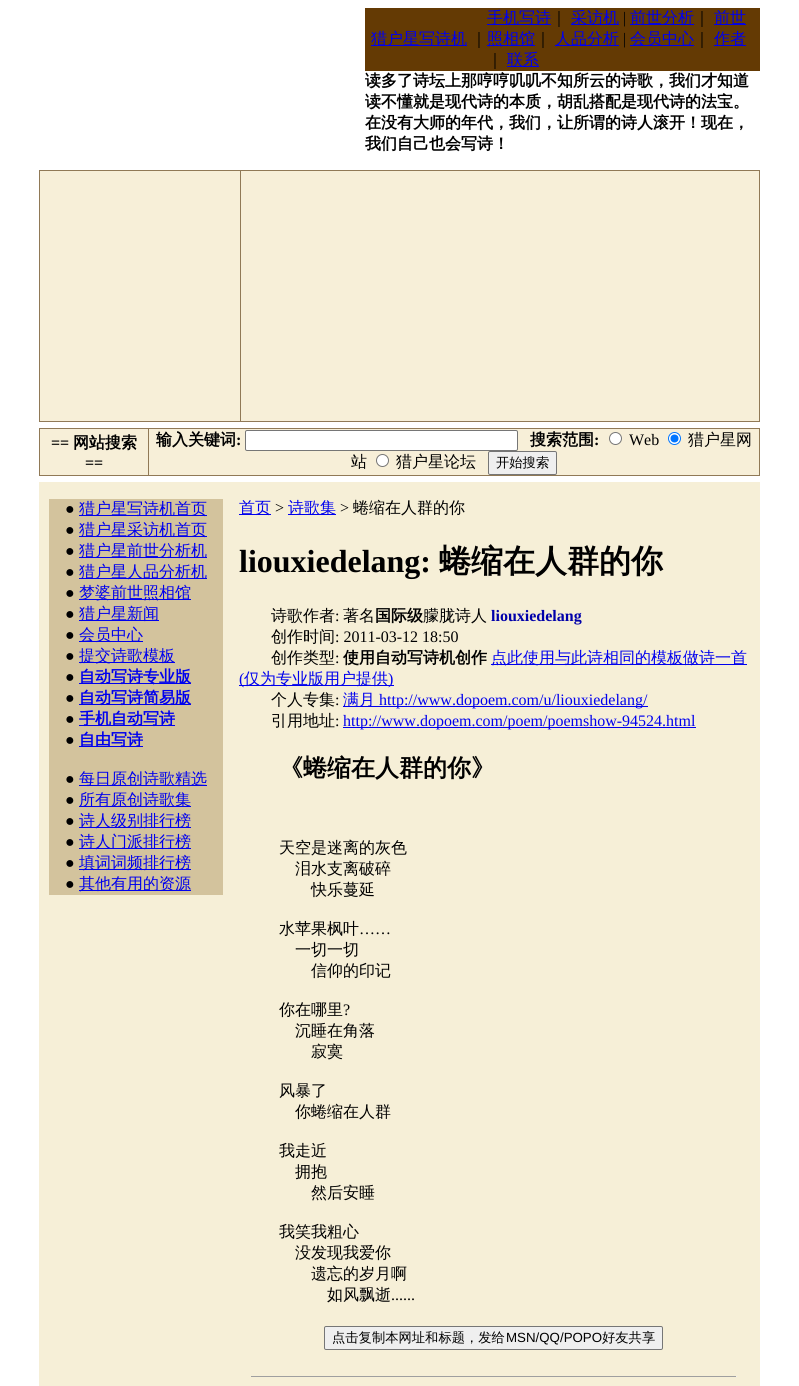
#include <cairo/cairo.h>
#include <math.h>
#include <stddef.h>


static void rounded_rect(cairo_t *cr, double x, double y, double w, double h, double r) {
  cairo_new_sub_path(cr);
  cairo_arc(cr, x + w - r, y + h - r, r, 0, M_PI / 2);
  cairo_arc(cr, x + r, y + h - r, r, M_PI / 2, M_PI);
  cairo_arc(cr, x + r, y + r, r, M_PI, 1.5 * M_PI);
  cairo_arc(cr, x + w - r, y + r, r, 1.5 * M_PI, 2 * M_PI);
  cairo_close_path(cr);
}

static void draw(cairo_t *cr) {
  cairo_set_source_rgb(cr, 1, 1, 1);
  cairo_paint(cr);
  cairo_set_source_rgb(cr, 100 / 255.0, 58 / 255.0, 4 / 255.0);
  cairo_rectangle(cr, 365, 8, 395, 63);
  cairo_fill(cr);
  cairo_set_source_rgb(cr, 0, 0, 238 / 255.0);
  cairo_rectangle(cr, 371, 45, 96, 1);
  cairo_fill(cr);
  cairo_rectangle(cr, 487, 24, 64, 1);
  cairo_fill(cr);
  cairo_rectangle(cr, 571, 24, 48, 1);
  cairo_fill(cr);
  cairo_rectangle(cr, 630, 24, 64, 1);
  cairo_fill(cr);
  cairo_rectangle(cr, 714, 24, 32, 1);
  cairo_fill(cr);
  cairo_rectangle(cr, 487, 45, 48, 1);
  cairo_fill(cr);
  cairo_rectangle(cr, 555, 45, 64, 1);
  cairo_fill(cr);
  cairo_rectangle(cr, 630, 45, 64, 1);
  cairo_fill(cr);
  cairo_rectangle(cr, 714, 45, 32, 1);
  cairo_fill(cr);
  cairo_rectangle(cr, 507, 66, 32, 1);
  cairo_fill(cr);
  cairo_set_source_rgb(cr, 144 / 255.0, 121 / 255.0, 86 / 255.0);
  cairo_rectangle(cr, 39, 170, 721, 252);
  cairo_fill(cr);
  cairo_set_source_rgb(cr, 247 / 255.0, 239 / 255.0, 216 / 255.0);
  cairo_rectangle(cr, 40, 171, 200, 250);
  cairo_fill(cr);
  cairo_rectangle(cr, 241, 171, 518, 250);
  cairo_fill(cr);
  cairo_set_source_rgb(cr, 144 / 255.0, 121 / 255.0, 86 / 255.0);
  cairo_rectangle(cr, 39, 428, 721, 48);
  cairo_fill(cr);
  cairo_set_source_rgb(cr, 247 / 255.0, 239 / 255.0, 216 / 255.0);
  cairo_rectangle(cr, 40, 429, 108, 46);
  cairo_fill(cr);
  cairo_rectangle(cr, 149, 429, 610, 46);
  cairo_fill(cr);
  cairo_set_source_rgb(cr, 1, 1, 1);
  rounded_rect(cr, 245.5, 430.5, 272, 20, 1.5);
  cairo_fill_preserve(cr);
  cairo_set_source_rgb(cr, 118 / 255.0, 118 / 255.0, 118 / 255.0);
  cairo_set_line_width(cr, 1);
  cairo_stroke(cr);
  cairo_set_source_rgb(cr, 1, 1, 1);
  cairo_arc(cr, 615.5, 438.5, 6, 0, 2 * M_PI);
  cairo_fill_preserve(cr);
  cairo_set_source_rgb(cr, 118 / 255.0, 118 / 255.0, 118 / 255.0);
  cairo_stroke(cr);
  cairo_set_source_rgb(cr, 1, 1, 1);
  cairo_arc(cr, 674.5, 438.5, 6, 0, 2 * M_PI);
  cairo_fill_preserve(cr);
  cairo_set_source_rgb(cr, 0, 117 / 255.0, 1);
  cairo_stroke(cr);
  cairo_arc(cr, 674.5, 438.5, 4, 0, 2 * M_PI);
  cairo_fill(cr);
  cairo_set_source_rgb(cr, 1, 1, 1);
  cairo_arc(cr, 382.5, 460.5, 6, 0, 2 * M_PI);
  cairo_fill_preserve(cr);
  cairo_set_source_rgb(cr, 118 / 255.0, 118 / 255.0, 118 / 255.0);
  cairo_stroke(cr);
  cairo_set_source_rgb(cr, 239 / 255.0, 239 / 255.0, 239 / 255.0);
  rounded_rect(cr, 488.5, 451.5, 68, 23, 1.5);
  cairo_fill_preserve(cr);
  cairo_set_source_rgb(cr, 118 / 255.0, 118 / 255.0, 118 / 255.0);
  cairo_stroke(cr);
  cairo_set_source_rgb(cr, 246 / 255.0, 239 / 255.0, 215 / 255.0);
  cairo_rectangle(cr, 39, 482, 721, 904);
  cairo_fill(cr);
  cairo_set_source_rgb(cr, 211 / 255.0, 195 / 255.0, 157 / 255.0);
  cairo_rectangle(cr, 49, 499, 174, 396);
  cairo_fill(cr);
  cairo_set_source_rgb(cr, 0, 0, 238 / 255.0);
  cairo_rectangle(cr, 79, 515, 128, 1);
  cairo_fill(cr);
  cairo_rectangle(cr, 79, 536, 128, 1);
  cairo_fill(cr);
  cairo_rectangle(cr, 79, 557, 128, 1);
  cairo_fill(cr);
  cairo_rectangle(cr, 79, 578, 128, 1);
  cairo_fill(cr);
  cairo_rectangle(cr, 79, 599, 112, 1);
  cairo_fill(cr);
  cairo_rectangle(cr, 79, 620, 80, 1);
  cairo_fill(cr);
  cairo_rectangle(cr, 79, 641, 64, 1);
  cairo_fill(cr);
  cairo_rectangle(cr, 79, 662, 96, 1);
  cairo_fill(cr);
  cairo_rectangle(cr, 79, 683, 112, 1);
  cairo_fill(cr);
  cairo_rectangle(cr, 79, 704, 112, 1);
  cairo_fill(cr);
  cairo_rectangle(cr, 79, 725, 96, 1);
  cairo_fill(cr);
  cairo_rectangle(cr, 79, 746, 64, 1);
  cairo_fill(cr);
  cairo_rectangle(cr, 79, 785, 128, 1);
  cairo_fill(cr);
  cairo_rectangle(cr, 79, 806, 112, 1);
  cairo_fill(cr);
  cairo_rectangle(cr, 79, 827, 112, 1);
  cairo_fill(cr);
  cairo_rectangle(cr, 79, 848, 112, 1);
  cairo_fill(cr);
  cairo_rectangle(cr, 79, 869, 112, 1);
  cairo_fill(cr);
  cairo_rectangle(cr, 79, 890, 112, 1);
  cairo_fill(cr);
  cairo_rectangle(cr, 239, 514, 32, 1);
  cairo_fill(cr);
  cairo_rectangle(cr, 288, 514, 48, 1);
  cairo_fill(cr);
  cairo_rectangle(cr, 491, 664, 256, 1);
  cairo_fill(cr);
  cairo_rectangle(cr, 239, 685, 155, 1);
  cairo_fill(cr);
  cairo_rectangle(cr, 343, 706, 305, 1);
  cairo_fill(cr);
  cairo_rectangle(cr, 343, 727, 353, 1);
  cairo_fill(cr);
  cairo_set_source_rgb(cr, 239 / 255.0, 239 / 255.0, 239 / 255.0);
  rounded_rect(cr, 324.5, 1326.5, 338, 23, 1.5);
  cairo_fill_preserve(cr);
  cairo_set_source_rgb(cr, 118 / 255.0, 118 / 255.0, 118 / 255.0);
  cairo_stroke(cr);
  cairo_set_source_rgb(cr, 159 / 255.0, 159 / 255.0, 159 / 255.0);
  cairo_rectangle(cr, 251, 1376, 486, 1);
  cairo_fill(cr);
  cairo_set_source_rgb(cr, 238 / 255.0, 238 / 255.0, 238 / 255.0);
  cairo_rectangle(cr, 736, 1376, 1, 1);
  cairo_fill(cr);
  cairo_select_font_face(cr, "WenQuanYi Zen Hei Medium", CAIRO_FONT_SLANT_NORMAL, CAIRO_FONT_WEIGHT_NORMAL);
  cairo_set_font_size(cr, 16);
  cairo_set_source_rgb(cr, 0, 0, 238 / 255.0);
  cairo_move_to(cr, 371, 44);
  cairo_show_text(cr, "猎户星写诗机");
  cairo_set_source_rgb(cr, 0, 0, 0);
  cairo_move_to(cr, 471, 44);
  cairo_show_text(cr, "｜");
  cairo_set_source_rgb(cr, 0, 0, 238 / 255.0);
  cairo_move_to(cr, 487, 23);
  cairo_show_text(cr, "手机写诗");
  cairo_set_source_rgb(cr, 0, 0, 0);
  cairo_move_to(cr, 551, 23);
  cairo_show_text(cr, "｜");
  cairo_set_source_rgb(cr, 0, 0, 238 / 255.0);
  cairo_move_to(cr, 571, 23);
  cairo_show_text(cr, "采访机");
  cairo_select_font_face(cr, "Liberation Serif", CAIRO_FONT_SLANT_NORMAL, CAIRO_FONT_WEIGHT_NORMAL);
  cairo_set_source_rgb(cr, 0, 0, 0);
  cairo_move_to(cr, 623, 23);
  cairo_show_text(cr, "|");
  cairo_select_font_face(cr, "WenQuanYi Zen Hei Medium", CAIRO_FONT_SLANT_NORMAL, CAIRO_FONT_WEIGHT_NORMAL);
  cairo_set_source_rgb(cr, 0, 0, 238 / 255.0);
  cairo_move_to(cr, 630, 23);
  cairo_show_text(cr, "前世分析");
  cairo_set_source_rgb(cr, 0, 0, 0);
  cairo_move_to(cr, 694, 23);
  cairo_show_text(cr, "｜");
  cairo_set_source_rgb(cr, 0, 0, 238 / 255.0);
  cairo_move_to(cr, 714, 23);
  cairo_show_text(cr, "前世");
  cairo_move_to(cr, 487, 44);
  cairo_show_text(cr, "照相馆");
  cairo_set_source_rgb(cr, 0, 0, 0);
  cairo_move_to(cr, 535, 44);
  cairo_show_text(cr, "｜");
  cairo_set_source_rgb(cr, 0, 0, 238 / 255.0);
  cairo_move_to(cr, 555, 44);
  cairo_show_text(cr, "人品分析");
  cairo_select_font_face(cr, "Liberation Serif", CAIRO_FONT_SLANT_NORMAL, CAIRO_FONT_WEIGHT_NORMAL);
  cairo_set_source_rgb(cr, 0, 0, 0);
  cairo_move_to(cr, 623, 44);
  cairo_show_text(cr, "|");
  cairo_select_font_face(cr, "WenQuanYi Zen Hei Medium", CAIRO_FONT_SLANT_NORMAL, CAIRO_FONT_WEIGHT_NORMAL);
  cairo_set_source_rgb(cr, 0, 0, 238 / 255.0);
  cairo_move_to(cr, 630, 44);
  cairo_show_text(cr, "会员中心");
  cairo_set_source_rgb(cr, 0, 0, 0);
  cairo_move_to(cr, 694, 44);
  cairo_show_text(cr, "｜");
  cairo_set_source_rgb(cr, 0, 0, 238 / 255.0);
  cairo_move_to(cr, 714, 44);
  cairo_show_text(cr, "作者");
  cairo_set_source_rgb(cr, 0, 0, 0);
  cairo_move_to(cr, 487, 65);
  cairo_show_text(cr, "｜");
  cairo_set_source_rgb(cr, 0, 0, 238 / 255.0);
  cairo_move_to(cr, 507, 65);
  cairo_show_text(cr, "联系");
  cairo_select_font_face(cr, "WenQuanYi Zen Hei", CAIRO_FONT_SLANT_NORMAL, CAIRO_FONT_WEIGHT_BOLD);
  cairo_set_source_rgb(cr, 0, 0, 0);
  cairo_move_to(cr, 365, 86);
  cairo_show_text(cr, "读多了诗坛上那哼哼叽叽不知所云的诗歌，我们才知道");
  cairo_move_to(cr, 365, 107);
  cairo_show_text(cr, "读不懂就是现代诗的本质，胡乱搭配是现代诗的法宝。");
  cairo_move_to(cr, 365, 128);
  cairo_show_text(cr, "在没有大师的年代，我们，让所谓的诗人滚开！现在，");
  cairo_move_to(cr, 365, 149);
  cairo_show_text(cr, "我们自己也会写诗！");
  cairo_select_font_face(cr, "Liberation Serif", CAIRO_FONT_SLANT_NORMAL, CAIRO_FONT_WEIGHT_BOLD);
  cairo_move_to(cr, 51, 448);
  cairo_show_text(cr, "==");
  cairo_select_font_face(cr, "WenQuanYi Zen Hei", CAIRO_FONT_SLANT_NORMAL, CAIRO_FONT_WEIGHT_BOLD);
  cairo_move_to(cr, 73, 448);
  cairo_show_text(cr, "网站搜索");
  cairo_select_font_face(cr, "Liberation Serif", CAIRO_FONT_SLANT_NORMAL, CAIRO_FONT_WEIGHT_BOLD);
  cairo_move_to(cr, 85, 468);
  cairo_show_text(cr, "==");
  cairo_select_font_face(cr, "WenQuanYi Zen Hei", CAIRO_FONT_SLANT_NORMAL, CAIRO_FONT_WEIGHT_BOLD);
  cairo_move_to(cr, 156, 445);
  cairo_show_text(cr, "输入关键词");
  cairo_select_font_face(cr, "Liberation Serif", CAIRO_FONT_SLANT_NORMAL, CAIRO_FONT_WEIGHT_BOLD);
  cairo_move_to(cr, 236, 445);
  cairo_show_text(cr, ":");
  cairo_select_font_face(cr, "WenQuanYi Zen Hei", CAIRO_FONT_SLANT_NORMAL, CAIRO_FONT_WEIGHT_BOLD);
  cairo_move_to(cr, 530, 445);
  cairo_show_text(cr, "搜索范围");
  cairo_select_font_face(cr, "Liberation Serif", CAIRO_FONT_SLANT_NORMAL, CAIRO_FONT_WEIGHT_BOLD);
  cairo_move_to(cr, 594, 445);
  cairo_show_text(cr, ":");
  cairo_select_font_face(cr, "Liberation Serif", CAIRO_FONT_SLANT_NORMAL, CAIRO_FONT_WEIGHT_NORMAL);
  cairo_move_to(cr, 629, 445);
  cairo_show_text(cr, "Web");
  cairo_select_font_face(cr, "WenQuanYi Zen Hei Medium", CAIRO_FONT_SLANT_NORMAL, CAIRO_FONT_WEIGHT_NORMAL);
  cairo_move_to(cr, 688, 445);
  cairo_show_text(cr, "猎户星网");
  cairo_move_to(cr, 351, 467);
  cairo_show_text(cr, "站");
  cairo_move_to(cr, 396, 467);
  cairo_show_text(cr, "猎户星论坛");
  cairo_set_font_size(cr, 13.3);
  cairo_move_to(cr, 496, 467);
  cairo_show_text(cr, "开始搜索");
  cairo_select_font_face(cr, "Liberation Serif", CAIRO_FONT_SLANT_NORMAL, CAIRO_FONT_WEIGHT_NORMAL);
  cairo_set_font_size(cr, 16);
  cairo_move_to(cr, 65, 514);
  cairo_show_text(cr, "●");
  cairo_select_font_face(cr, "WenQuanYi Zen Hei Medium", CAIRO_FONT_SLANT_NORMAL, CAIRO_FONT_WEIGHT_NORMAL);
  cairo_set_source_rgb(cr, 0, 0, 238 / 255.0);
  cairo_move_to(cr, 79, 514);
  cairo_show_text(cr, "猎户星写诗机首页");
  cairo_select_font_face(cr, "Liberation Serif", CAIRO_FONT_SLANT_NORMAL, CAIRO_FONT_WEIGHT_NORMAL);
  cairo_set_source_rgb(cr, 0, 0, 0);
  cairo_move_to(cr, 65, 535);
  cairo_show_text(cr, "●");
  cairo_select_font_face(cr, "WenQuanYi Zen Hei Medium", CAIRO_FONT_SLANT_NORMAL, CAIRO_FONT_WEIGHT_NORMAL);
  cairo_set_source_rgb(cr, 0, 0, 238 / 255.0);
  cairo_move_to(cr, 79, 535);
  cairo_show_text(cr, "猎户星采访机首页");
  cairo_select_font_face(cr, "Liberation Serif", CAIRO_FONT_SLANT_NORMAL, CAIRO_FONT_WEIGHT_NORMAL);
  cairo_set_source_rgb(cr, 0, 0, 0);
  cairo_move_to(cr, 65, 556);
  cairo_show_text(cr, "●");
  cairo_select_font_face(cr, "WenQuanYi Zen Hei Medium", CAIRO_FONT_SLANT_NORMAL, CAIRO_FONT_WEIGHT_NORMAL);
  cairo_set_source_rgb(cr, 0, 0, 238 / 255.0);
  cairo_move_to(cr, 79, 556);
  cairo_show_text(cr, "猎户星前世分析机");
  cairo_select_font_face(cr, "Liberation Serif", CAIRO_FONT_SLANT_NORMAL, CAIRO_FONT_WEIGHT_NORMAL);
  cairo_set_source_rgb(cr, 0, 0, 0);
  cairo_move_to(cr, 65, 577);
  cairo_show_text(cr, "●");
  cairo_select_font_face(cr, "WenQuanYi Zen Hei Medium", CAIRO_FONT_SLANT_NORMAL, CAIRO_FONT_WEIGHT_NORMAL);
  cairo_set_source_rgb(cr, 0, 0, 238 / 255.0);
  cairo_move_to(cr, 79, 577);
  cairo_show_text(cr, "猎户星人品分析机");
  cairo_select_font_face(cr, "Liberation Serif", CAIRO_FONT_SLANT_NORMAL, CAIRO_FONT_WEIGHT_NORMAL);
  cairo_set_source_rgb(cr, 0, 0, 0);
  cairo_move_to(cr, 65, 598);
  cairo_show_text(cr, "●");
  cairo_select_font_face(cr, "WenQuanYi Zen Hei Medium", CAIRO_FONT_SLANT_NORMAL, CAIRO_FONT_WEIGHT_NORMAL);
  cairo_set_source_rgb(cr, 0, 0, 238 / 255.0);
  cairo_move_to(cr, 79, 598);
  cairo_show_text(cr, "梦婆前世照相馆");
  cairo_select_font_face(cr, "Liberation Serif", CAIRO_FONT_SLANT_NORMAL, CAIRO_FONT_WEIGHT_NORMAL);
  cairo_set_source_rgb(cr, 0, 0, 0);
  cairo_move_to(cr, 65, 619);
  cairo_show_text(cr, "●");
  cairo_select_font_face(cr, "WenQuanYi Zen Hei Medium", CAIRO_FONT_SLANT_NORMAL, CAIRO_FONT_WEIGHT_NORMAL);
  cairo_set_source_rgb(cr, 0, 0, 238 / 255.0);
  cairo_move_to(cr, 79, 619);
  cairo_show_text(cr, "猎户星新闻");
  cairo_select_font_face(cr, "Liberation Serif", CAIRO_FONT_SLANT_NORMAL, CAIRO_FONT_WEIGHT_NORMAL);
  cairo_set_source_rgb(cr, 0, 0, 0);
  cairo_move_to(cr, 65, 640);
  cairo_show_text(cr, "●");
  cairo_select_font_face(cr, "WenQuanYi Zen Hei Medium", CAIRO_FONT_SLANT_NORMAL, CAIRO_FONT_WEIGHT_NORMAL);
  cairo_set_source_rgb(cr, 0, 0, 238 / 255.0);
  cairo_move_to(cr, 79, 640);
  cairo_show_text(cr, "会员中心");
  cairo_select_font_face(cr, "Liberation Serif", CAIRO_FONT_SLANT_NORMAL, CAIRO_FONT_WEIGHT_NORMAL);
  cairo_set_source_rgb(cr, 0, 0, 0);
  cairo_move_to(cr, 65, 661);
  cairo_show_text(cr, "●");
  cairo_select_font_face(cr, "WenQuanYi Zen Hei Medium", CAIRO_FONT_SLANT_NORMAL, CAIRO_FONT_WEIGHT_NORMAL);
  cairo_set_source_rgb(cr, 0, 0, 238 / 255.0);
  cairo_move_to(cr, 79, 661);
  cairo_show_text(cr, "提交诗歌模板");
  cairo_select_font_face(cr, "Liberation Serif", CAIRO_FONT_SLANT_NORMAL, CAIRO_FONT_WEIGHT_NORMAL);
  cairo_set_source_rgb(cr, 0, 0, 0);
  cairo_move_to(cr, 65, 682);
  cairo_show_text(cr, "●");
  cairo_select_font_face(cr, "WenQuanYi Zen Hei", CAIRO_FONT_SLANT_NORMAL, CAIRO_FONT_WEIGHT_BOLD);
  cairo_set_source_rgb(cr, 0, 0, 238 / 255.0);
  cairo_move_to(cr, 79, 682);
  cairo_show_text(cr, "自动写诗专业版");
  cairo_select_font_face(cr, "Liberation Serif", CAIRO_FONT_SLANT_NORMAL, CAIRO_FONT_WEIGHT_NORMAL);
  cairo_set_source_rgb(cr, 0, 0, 0);
  cairo_move_to(cr, 65, 703);
  cairo_show_text(cr, "●");
  cairo_select_font_face(cr, "WenQuanYi Zen Hei", CAIRO_FONT_SLANT_NORMAL, CAIRO_FONT_WEIGHT_BOLD);
  cairo_set_source_rgb(cr, 0, 0, 238 / 255.0);
  cairo_move_to(cr, 79, 703);
  cairo_show_text(cr, "自动写诗简易版");
  cairo_select_font_face(cr, "Liberation Serif", CAIRO_FONT_SLANT_NORMAL, CAIRO_FONT_WEIGHT_NORMAL);
  cairo_set_source_rgb(cr, 0, 0, 0);
  cairo_move_to(cr, 65, 724);
  cairo_show_text(cr, "●");
  cairo_select_font_face(cr, "WenQuanYi Zen Hei", CAIRO_FONT_SLANT_NORMAL, CAIRO_FONT_WEIGHT_BOLD);
  cairo_set_source_rgb(cr, 0, 0, 238 / 255.0);
  cairo_move_to(cr, 79, 724);
  cairo_show_text(cr, "手机自动写诗");
  cairo_select_font_face(cr, "Liberation Serif", CAIRO_FONT_SLANT_NORMAL, CAIRO_FONT_WEIGHT_NORMAL);
  cairo_set_source_rgb(cr, 0, 0, 0);
  cairo_move_to(cr, 65, 745);
  cairo_show_text(cr, "●");
  cairo_select_font_face(cr, "WenQuanYi Zen Hei", CAIRO_FONT_SLANT_NORMAL, CAIRO_FONT_WEIGHT_BOLD);
  cairo_set_source_rgb(cr, 0, 0, 238 / 255.0);
  cairo_move_to(cr, 79, 745);
  cairo_show_text(cr, "自由写诗");
  cairo_select_font_face(cr, "Liberation Serif", CAIRO_FONT_SLANT_NORMAL, CAIRO_FONT_WEIGHT_NORMAL);
  cairo_set_source_rgb(cr, 0, 0, 0);
  cairo_move_to(cr, 65, 784);
  cairo_show_text(cr, "●");
  cairo_select_font_face(cr, "WenQuanYi Zen Hei Medium", CAIRO_FONT_SLANT_NORMAL, CAIRO_FONT_WEIGHT_NORMAL);
  cairo_set_source_rgb(cr, 0, 0, 238 / 255.0);
  cairo_move_to(cr, 79, 784);
  cairo_show_text(cr, "每日原创诗歌精选");
  cairo_select_font_face(cr, "Liberation Serif", CAIRO_FONT_SLANT_NORMAL, CAIRO_FONT_WEIGHT_NORMAL);
  cairo_set_source_rgb(cr, 0, 0, 0);
  cairo_move_to(cr, 65, 805);
  cairo_show_text(cr, "●");
  cairo_select_font_face(cr, "WenQuanYi Zen Hei Medium", CAIRO_FONT_SLANT_NORMAL, CAIRO_FONT_WEIGHT_NORMAL);
  cairo_set_source_rgb(cr, 0, 0, 238 / 255.0);
  cairo_move_to(cr, 79, 805);
  cairo_show_text(cr, "所有原创诗歌集");
  cairo_select_font_face(cr, "Liberation Serif", CAIRO_FONT_SLANT_NORMAL, CAIRO_FONT_WEIGHT_NORMAL);
  cairo_set_source_rgb(cr, 0, 0, 0);
  cairo_move_to(cr, 65, 826);
  cairo_show_text(cr, "●");
  cairo_select_font_face(cr, "WenQuanYi Zen Hei Medium", CAIRO_FONT_SLANT_NORMAL, CAIRO_FONT_WEIGHT_NORMAL);
  cairo_set_source_rgb(cr, 0, 0, 238 / 255.0);
  cairo_move_to(cr, 79, 826);
  cairo_show_text(cr, "诗人级别排行榜");
  cairo_select_font_face(cr, "Liberation Serif", CAIRO_FONT_SLANT_NORMAL, CAIRO_FONT_WEIGHT_NORMAL);
  cairo_set_source_rgb(cr, 0, 0, 0);
  cairo_move_to(cr, 65, 847);
  cairo_show_text(cr, "●");
  cairo_select_font_face(cr, "WenQuanYi Zen Hei Medium", CAIRO_FONT_SLANT_NORMAL, CAIRO_FONT_WEIGHT_NORMAL);
  cairo_set_source_rgb(cr, 0, 0, 238 / 255.0);
  cairo_move_to(cr, 79, 847);
  cairo_show_text(cr, "诗人门派排行榜");
  cairo_select_font_face(cr, "Liberation Serif", CAIRO_FONT_SLANT_NORMAL, CAIRO_FONT_WEIGHT_NORMAL);
  cairo_set_source_rgb(cr, 0, 0, 0);
  cairo_move_to(cr, 65, 868);
  cairo_show_text(cr, "●");
  cairo_select_font_face(cr, "WenQuanYi Zen Hei Medium", CAIRO_FONT_SLANT_NORMAL, CAIRO_FONT_WEIGHT_NORMAL);
  cairo_set_source_rgb(cr, 0, 0, 238 / 255.0);
  cairo_move_to(cr, 79, 868);
  cairo_show_text(cr, "填词词频排行榜");
  cairo_select_font_face(cr, "Liberation Serif", CAIRO_FONT_SLANT_NORMAL, CAIRO_FONT_WEIGHT_NORMAL);
  cairo_set_source_rgb(cr, 0, 0, 0);
  cairo_move_to(cr, 65, 889);
  cairo_show_text(cr, "●");
  cairo_select_font_face(cr, "WenQuanYi Zen Hei Medium", CAIRO_FONT_SLANT_NORMAL, CAIRO_FONT_WEIGHT_NORMAL);
  cairo_set_source_rgb(cr, 0, 0, 238 / 255.0);
  cairo_move_to(cr, 79, 889);
  cairo_show_text(cr, "其他有用的资源");
  cairo_move_to(cr, 239, 513);
  cairo_show_text(cr, "首页");
  cairo_select_font_face(cr, "Liberation Serif", CAIRO_FONT_SLANT_NORMAL, CAIRO_FONT_WEIGHT_NORMAL);
  cairo_set_source_rgb(cr, 0, 0, 0);
  cairo_move_to(cr, 275, 513);
  cairo_show_text(cr, ">");
  cairo_select_font_face(cr, "WenQuanYi Zen Hei Medium", CAIRO_FONT_SLANT_NORMAL, CAIRO_FONT_WEIGHT_NORMAL);
  cairo_set_source_rgb(cr, 0, 0, 238 / 255.0);
  cairo_move_to(cr, 288, 513);
  cairo_show_text(cr, "诗歌集");
  cairo_select_font_face(cr, "Liberation Serif", CAIRO_FONT_SLANT_NORMAL, CAIRO_FONT_WEIGHT_NORMAL);
  cairo_set_source_rgb(cr, 0, 0, 0);
  cairo_move_to(cr, 340, 513);
  cairo_show_text(cr, ">");
  cairo_select_font_face(cr, "WenQuanYi Zen Hei Medium", CAIRO_FONT_SLANT_NORMAL, CAIRO_FONT_WEIGHT_NORMAL);
  cairo_move_to(cr, 353, 513);
  cairo_show_text(cr, "蜷缩在人群的你");
  cairo_select_font_face(cr, "Liberation Serif", CAIRO_FONT_SLANT_NORMAL, CAIRO_FONT_WEIGHT_BOLD);
  cairo_set_font_size(cr, 32);
  cairo_move_to(cr, 239, 572);
  cairo_show_text(cr, "liouxiedelang:");
  cairo_select_font_face(cr, "WenQuanYi Zen Hei", CAIRO_FONT_SLANT_NORMAL, CAIRO_FONT_WEIGHT_BOLD);
  cairo_move_to(cr, 439, 572);
  cairo_show_text(cr, "蜷缩在人群的你");
  cairo_select_font_face(cr, "WenQuanYi Zen Hei Medium", CAIRO_FONT_SLANT_NORMAL, CAIRO_FONT_WEIGHT_NORMAL);
  cairo_set_font_size(cr, 16);
  cairo_move_to(cr, 271, 621);
  cairo_show_text(cr, "诗歌作者");
  cairo_select_font_face(cr, "Liberation Serif", CAIRO_FONT_SLANT_NORMAL, CAIRO_FONT_WEIGHT_NORMAL);
  cairo_move_to(cr, 335, 621);
  cairo_show_text(cr, ":");
  cairo_select_font_face(cr, "WenQuanYi Zen Hei Medium", CAIRO_FONT_SLANT_NORMAL, CAIRO_FONT_WEIGHT_NORMAL);
  cairo_move_to(cr, 343, 621);
  cairo_show_text(cr, "著名");
  cairo_select_font_face(cr, "WenQuanYi Zen Hei", CAIRO_FONT_SLANT_NORMAL, CAIRO_FONT_WEIGHT_BOLD);
  cairo_move_to(cr, 375, 621);
  cairo_show_text(cr, "国际级");
  cairo_select_font_face(cr, "WenQuanYi Zen Hei Medium", CAIRO_FONT_SLANT_NORMAL, CAIRO_FONT_WEIGHT_NORMAL);
  cairo_move_to(cr, 423, 621);
  cairo_show_text(cr, "朦胧诗人");
  cairo_select_font_face(cr, "Liberation Serif", CAIRO_FONT_SLANT_NORMAL, CAIRO_FONT_WEIGHT_BOLD);
  cairo_set_source_rgb(cr, 0, 0, 170 / 255.0);
  cairo_move_to(cr, 491, 621);
  cairo_show_text(cr, "liouxiedelang");
  cairo_select_font_face(cr, "WenQuanYi Zen Hei Medium", CAIRO_FONT_SLANT_NORMAL, CAIRO_FONT_WEIGHT_NORMAL);
  cairo_set_source_rgb(cr, 0, 0, 0);
  cairo_move_to(cr, 271, 642);
  cairo_show_text(cr, "创作时间");
  cairo_select_font_face(cr, "Liberation Serif", CAIRO_FONT_SLANT_NORMAL, CAIRO_FONT_WEIGHT_NORMAL);
  cairo_move_to(cr, 335, 642);
  cairo_show_text(cr, ": 2011-03-12 18:50");
  cairo_select_font_face(cr, "WenQuanYi Zen Hei Medium", CAIRO_FONT_SLANT_NORMAL, CAIRO_FONT_WEIGHT_NORMAL);
  cairo_move_to(cr, 271, 663);
  cairo_show_text(cr, "创作类型");
  cairo_select_font_face(cr, "Liberation Serif", CAIRO_FONT_SLANT_NORMAL, CAIRO_FONT_WEIGHT_NORMAL);
  cairo_move_to(cr, 335, 663);
  cairo_show_text(cr, ":");
  cairo_select_font_face(cr, "WenQuanYi Zen Hei", CAIRO_FONT_SLANT_NORMAL, CAIRO_FONT_WEIGHT_BOLD);
  cairo_move_to(cr, 343, 663);
  cairo_show_text(cr, "使用自动写诗机创作");
  cairo_select_font_face(cr, "WenQuanYi Zen Hei Medium", CAIRO_FONT_SLANT_NORMAL, CAIRO_FONT_WEIGHT_NORMAL);
  cairo_set_source_rgb(cr, 0, 0, 238 / 255.0);
  cairo_move_to(cr, 491, 663);
  cairo_show_text(cr, "点此使用与此诗相同的模板做诗一首");
  cairo_select_font_face(cr, "Liberation Serif", CAIRO_FONT_SLANT_NORMAL, CAIRO_FONT_WEIGHT_NORMAL);
  cairo_move_to(cr, 239, 684);
  cairo_show_text(cr, "(");
  cairo_select_font_face(cr, "WenQuanYi Zen Hei Medium", CAIRO_FONT_SLANT_NORMAL, CAIRO_FONT_WEIGHT_NORMAL);
  cairo_move_to(cr, 244, 684);
  cairo_show_text(cr, "仅为专业版用户提供");
  cairo_select_font_face(cr, "Liberation Serif", CAIRO_FONT_SLANT_NORMAL, CAIRO_FONT_WEIGHT_NORMAL);
  cairo_move_to(cr, 388, 684);
  cairo_show_text(cr, ")");
  cairo_select_font_face(cr, "WenQuanYi Zen Hei Medium", CAIRO_FONT_SLANT_NORMAL, CAIRO_FONT_WEIGHT_NORMAL);
  cairo_set_source_rgb(cr, 0, 0, 0);
  cairo_move_to(cr, 271, 705);
  cairo_show_text(cr, "个人专集");
  cairo_select_font_face(cr, "Liberation Serif", CAIRO_FONT_SLANT_NORMAL, CAIRO_FONT_WEIGHT_NORMAL);
  cairo_move_to(cr, 335, 705);
  cairo_show_text(cr, ":");
  cairo_select_font_face(cr, "WenQuanYi Zen Hei Medium", CAIRO_FONT_SLANT_NORMAL, CAIRO_FONT_WEIGHT_NORMAL);
  cairo_set_source_rgb(cr, 0, 0, 238 / 255.0);
  cairo_move_to(cr, 343, 705);
  cairo_show_text(cr, "满月");
  cairo_select_font_face(cr, "Liberation Serif", CAIRO_FONT_SLANT_NORMAL, CAIRO_FONT_WEIGHT_NORMAL);
  cairo_move_to(cr, 379, 705);
  cairo_show_text(cr, "http://www.dopoem.com/u/liouxiedelang/");
  cairo_select_font_face(cr, "WenQuanYi Zen Hei Medium", CAIRO_FONT_SLANT_NORMAL, CAIRO_FONT_WEIGHT_NORMAL);
  cairo_set_source_rgb(cr, 0, 0, 0);
  cairo_move_to(cr, 271, 726);
  cairo_show_text(cr, "引用地址");
  cairo_select_font_face(cr, "Liberation Serif", CAIRO_FONT_SLANT_NORMAL, CAIRO_FONT_WEIGHT_NORMAL);
  cairo_move_to(cr, 335, 726);
  cairo_show_text(cr, ":");
  cairo_set_source_rgb(cr, 0, 0, 238 / 255.0);
  cairo_move_to(cr, 343, 726);
  cairo_show_text(cr, "http://www.dopoem.com/poem/poemshow-94524.html");
  cairo_select_font_face(cr, "WenQuanYi Zen Hei", CAIRO_FONT_SLANT_NORMAL, CAIRO_FONT_WEIGHT_BOLD);
  cairo_set_font_size(cr, 24);
  cairo_set_source_rgb(cr, 0, 0, 0);
  cairo_move_to(cr, 279, 776);
  cairo_show_text(cr, "《蜷缩在人群的你》");
  cairo_select_font_face(cr, "WenQuanYi Zen Hei Medium", CAIRO_FONT_SLANT_NORMAL, CAIRO_FONT_WEIGHT_NORMAL);
  cairo_set_font_size(cr, 16);
  cairo_move_to(cr, 279, 853);
  cairo_show_text(cr, "天空是迷离的灰色");
  cairo_move_to(cr, 295, 874);
  cairo_show_text(cr, "泪水支离破碎");
  cairo_move_to(cr, 311, 895);
  cairo_show_text(cr, "快乐蔓延");
  cairo_move_to(cr, 279, 934);
  cairo_show_text(cr, "水苹果枫叶");
  cairo_select_font_face(cr, "Liberation Serif", CAIRO_FONT_SLANT_NORMAL, CAIRO_FONT_WEIGHT_NORMAL);
  cairo_move_to(cr, 359, 934);
  cairo_show_text(cr, "……");
  cairo_select_font_face(cr, "WenQuanYi Zen Hei Medium", CAIRO_FONT_SLANT_NORMAL, CAIRO_FONT_WEIGHT_NORMAL);
  cairo_move_to(cr, 295, 955);
  cairo_show_text(cr, "一切一切");
  cairo_move_to(cr, 311, 976);
  cairo_show_text(cr, "信仰的印记");
  cairo_move_to(cr, 279, 1015);
  cairo_show_text(cr, "你在哪里");
  cairo_select_font_face(cr, "Liberation Serif", CAIRO_FONT_SLANT_NORMAL, CAIRO_FONT_WEIGHT_NORMAL);
  cairo_move_to(cr, 343, 1015);
  cairo_show_text(cr, "?");
  cairo_select_font_face(cr, "WenQuanYi Zen Hei Medium", CAIRO_FONT_SLANT_NORMAL, CAIRO_FONT_WEIGHT_NORMAL);
  cairo_move_to(cr, 295, 1036);
  cairo_show_text(cr, "沉睡在角落");
  cairo_move_to(cr, 311, 1057);
  cairo_show_text(cr, "寂寞");
  cairo_move_to(cr, 279, 1096);
  cairo_show_text(cr, "风暴了");
  cairo_move_to(cr, 295, 1117);
  cairo_show_text(cr, "你蜷缩在人群");
  cairo_move_to(cr, 279, 1156);
  cairo_show_text(cr, "我走近");
  cairo_move_to(cr, 295, 1177);
  cairo_show_text(cr, "拥抱");
  cairo_move_to(cr, 311, 1198);
  cairo_show_text(cr, "然后安睡");
  cairo_move_to(cr, 279, 1237);
  cairo_show_text(cr, "我笑我粗心");
  cairo_move_to(cr, 295, 1258);
  cairo_show_text(cr, "没发现我爱你");
  cairo_move_to(cr, 311, 1279);
  cairo_show_text(cr, "遗忘的岁月啊");
  cairo_move_to(cr, 327, 1300);
  cairo_show_text(cr, "如风飘逝");
  cairo_select_font_face(cr, "Liberation Serif", CAIRO_FONT_SLANT_NORMAL, CAIRO_FONT_WEIGHT_NORMAL);
  cairo_move_to(cr, 391, 1300);
  cairo_show_text(cr, "......");
  cairo_select_font_face(cr, "WenQuanYi Zen Hei Medium", CAIRO_FONT_SLANT_NORMAL, CAIRO_FONT_WEIGHT_NORMAL);
  cairo_set_font_size(cr, 13.3);
  cairo_move_to(cr, 332, 1342);
  cairo_show_text(cr, "点击复制本网址和标题，发给");
  cairo_select_font_face(cr, "Liberation Sans", CAIRO_FONT_SLANT_NORMAL, CAIRO_FONT_WEIGHT_NORMAL);
  cairo_move_to(cr, 506, 1342);
  cairo_show_text(cr, "MSN/QQ/POPO");
  cairo_select_font_face(cr, "WenQuanYi Zen Hei Medium", CAIRO_FONT_SLANT_NORMAL, CAIRO_FONT_WEIGHT_NORMAL);
  cairo_move_to(cr, 602, 1342);
  cairo_show_text(cr, "好友共享");
}

int main(void) {
  cairo_surface_t *surface = cairo_image_surface_create(CAIRO_FORMAT_RGB24, 799, 1386);
  cairo_t *cr = cairo_create(surface);
  cairo_font_options_t *options = cairo_font_options_create();
  cairo_font_options_set_hint_metrics(options, CAIRO_HINT_METRICS_OFF);
  cairo_font_options_set_hint_style(options, CAIRO_HINT_STYLE_NONE);
  cairo_set_font_options(cr, options);
  cairo_set_miter_limit(cr, 4);
  draw(cr);
  cairo_surface_write_to_png(surface, "out.png");
  cairo_font_options_destroy(options);
  cairo_destroy(cr);
  cairo_surface_destroy(surface);
  return 0;
}
